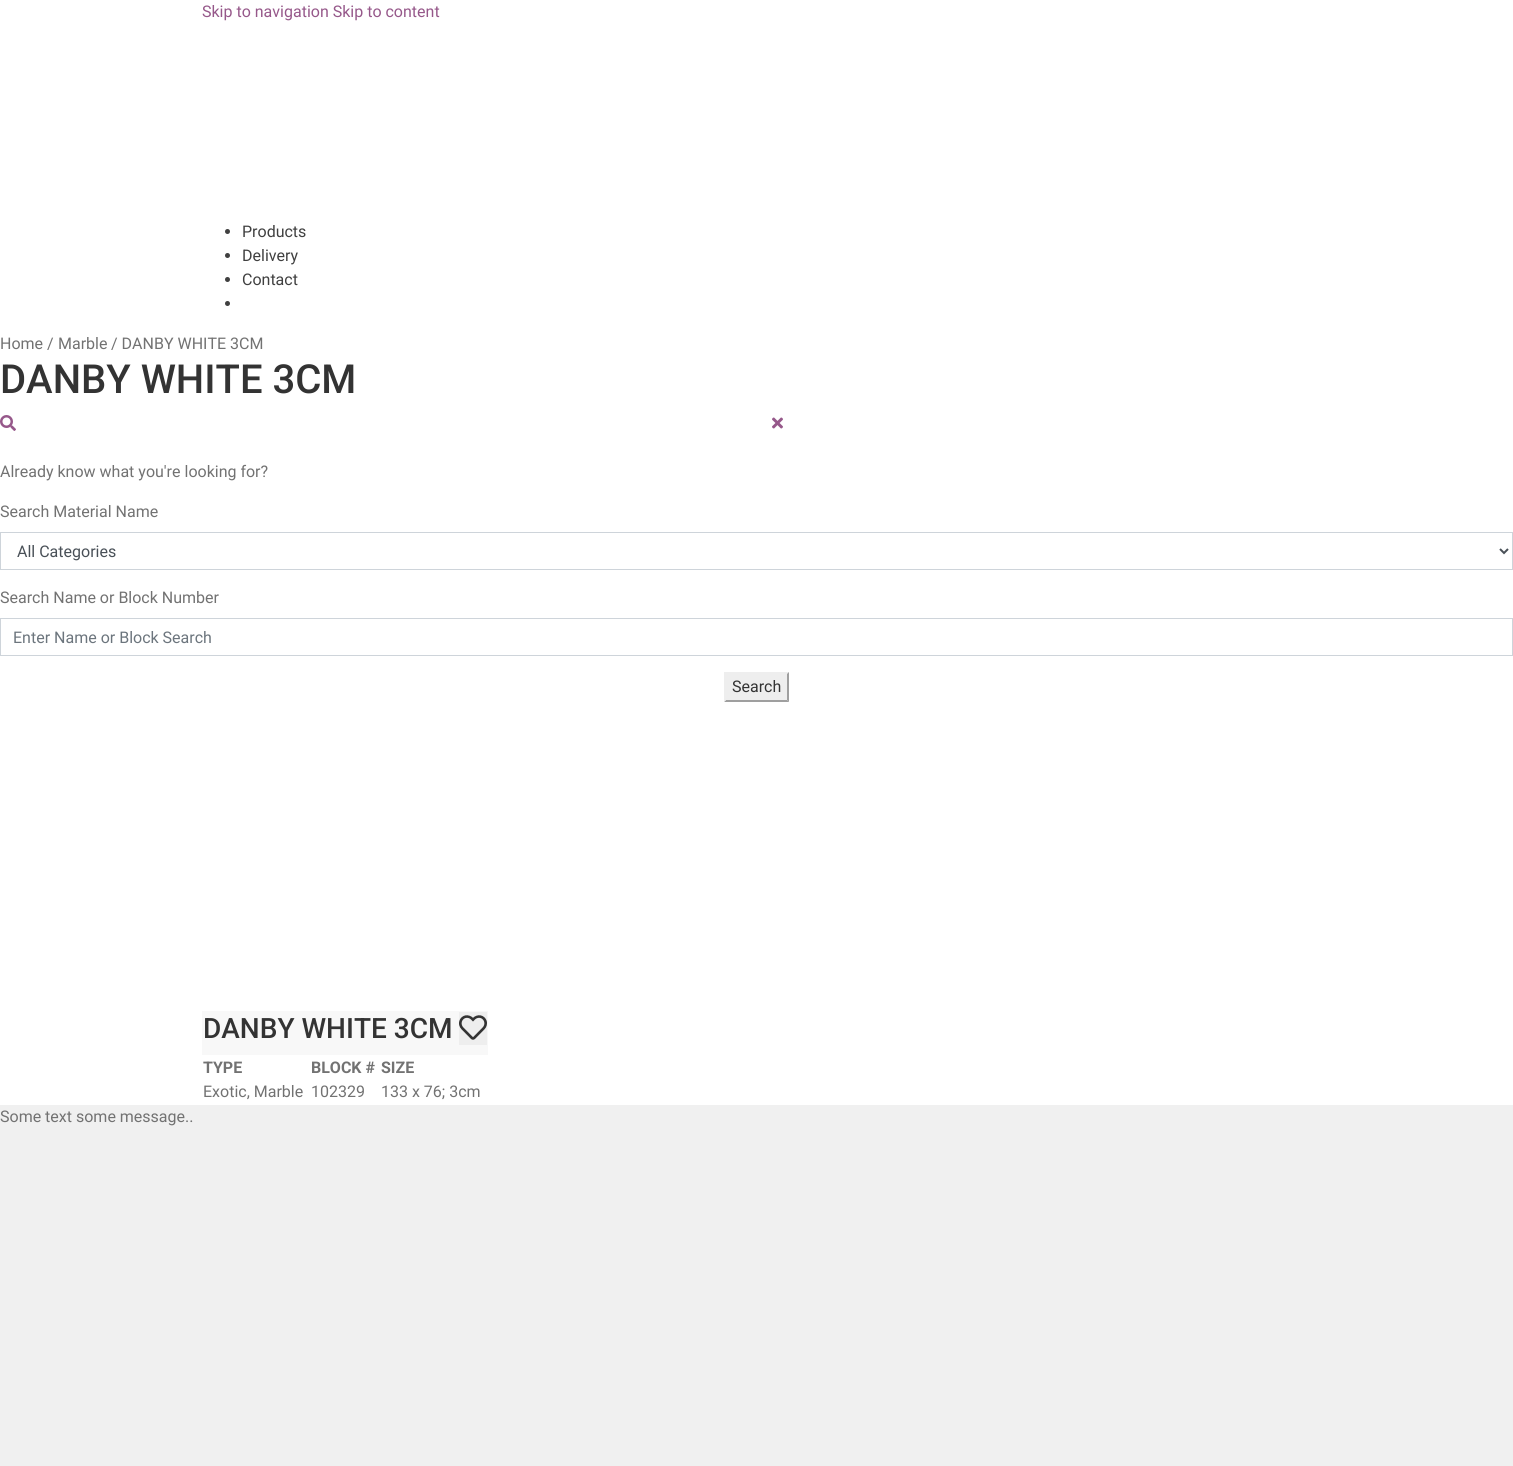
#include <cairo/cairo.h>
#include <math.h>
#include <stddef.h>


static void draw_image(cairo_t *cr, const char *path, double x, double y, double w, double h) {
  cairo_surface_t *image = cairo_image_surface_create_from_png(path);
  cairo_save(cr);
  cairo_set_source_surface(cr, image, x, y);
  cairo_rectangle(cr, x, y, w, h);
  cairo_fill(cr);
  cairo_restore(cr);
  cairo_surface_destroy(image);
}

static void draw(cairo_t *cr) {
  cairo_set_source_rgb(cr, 1, 1, 1);
  cairo_paint(cr);
  cairo_set_source_rgb(cr, 64 / 255.0, 64 / 255.0, 64 / 255.0);
  cairo_arc(cr, 227.5, 231.5, 2.5, 0, 2 * M_PI);
  cairo_fill(cr);
  cairo_arc(cr, 227.5, 255.5, 2.5, 0, 2 * M_PI);
  cairo_fill(cr);
  cairo_arc(cr, 227.5, 279.5, 2.5, 0, 2 * M_PI);
  cairo_fill(cr);
  cairo_arc(cr, 227.5, 303.5, 2.5, 0, 2 * M_PI);
  cairo_fill(cr);
  draw_image(cr, "images/1.png", 0, 415, 16, 16);
  draw_image(cr, "images/2.png", 772, 417, 11, 12);
  cairo_rectangle(cr, 0.5, 532.5, 1512, 37);
  cairo_set_source_rgb(cr, 206 / 255.0, 212 / 255.0, 218 / 255.0);
  cairo_set_line_width(cr, 1);
  cairo_stroke(cr);
  cairo_new_path(cr);
  cairo_move_to(cr, 1500, 549);
  cairo_line_to(cr, 1504, 553);
  cairo_line_to(cr, 1508, 549);
  cairo_set_source_rgb(cr, 73 / 255.0, 80 / 255.0, 87 / 255.0);
  cairo_set_line_width(cr, 2);
  cairo_stroke(cr);
  cairo_rectangle(cr, 0.5, 618.5, 1512, 37);
  cairo_set_source_rgb(cr, 206 / 255.0, 212 / 255.0, 218 / 255.0);
  cairo_set_line_width(cr, 1);
  cairo_stroke(cr);
  cairo_set_source_rgb(cr, 238 / 255.0, 238 / 255.0, 238 / 255.0);
  cairo_rectangle(cr, 724, 672, 65, 30);
  cairo_fill(cr);
  cairo_set_source_rgb(cr, 159 / 255.0, 159 / 255.0, 159 / 255.0);
  cairo_new_path(cr);
  cairo_move_to(cr, 789, 672);
  cairo_line_to(cr, 789, 702);
  cairo_line_to(cr, 787, 700);
  cairo_line_to(cr, 787, 674);
  cairo_close_path(cr);
  cairo_fill(cr);
  cairo_new_path(cr);
  cairo_move_to(cr, 789, 702);
  cairo_line_to(cr, 724, 702);
  cairo_line_to(cr, 726, 700);
  cairo_line_to(cr, 787, 700);
  cairo_close_path(cr);
  cairo_fill(cr);
  cairo_set_source_rgb(cr, 238 / 255.0, 238 / 255.0, 238 / 255.0);
  cairo_new_path(cr);
  cairo_move_to(cr, 724, 702);
  cairo_line_to(cr, 724, 672);
  cairo_line_to(cr, 726, 674);
  cairo_line_to(cr, 726, 700);
  cairo_close_path(cr);
  cairo_fill(cr);
  cairo_set_source_rgb(cr, 248 / 255.0, 248 / 255.0, 248 / 255.0);
  cairo_rectangle(cr, 202, 1011, 286, 44);
  cairo_fill(cr);
  cairo_set_source_rgb(cr, 238 / 255.0, 238 / 255.0, 238 / 255.0);
  cairo_rectangle(cr, 459, 1012, 28, 33);
  cairo_fill(cr);
  draw_image(cr, "images/3.png", 459, 1015, 28, 25);
  cairo_set_source_rgb(cr, 240 / 255.0, 240 / 255.0, 240 / 255.0);
  cairo_rectangle(cr, 0, 1105, 1513, 361);
  cairo_fill(cr);
  cairo_select_font_face(cr, "Roboto", CAIRO_FONT_SLANT_NORMAL, CAIRO_FONT_WEIGHT_NORMAL);
  cairo_set_font_size(cr, 16);
  cairo_set_source_rgb(cr, 150 / 255.0, 88 / 255.0, 138 / 255.0);
  cairo_move_to(cr, 202, 17);
  cairo_show_text(cr, "Skip to navigation Skip to content");
  cairo_set_source_rgb(cr, 64 / 255.0, 64 / 255.0, 64 / 255.0);
  cairo_move_to(cr, 242, 237);
  cairo_show_text(cr, "Products");
  cairo_move_to(cr, 242, 261);
  cairo_show_text(cr, "Delivery");
  cairo_move_to(cr, 242, 285);
  cairo_show_text(cr, "Contact");
  cairo_set_source_rgb(cr, 114 / 255.0, 114 / 255.0, 114 / 255.0);
  cairo_move_to(cr, 0, 349);
  cairo_show_text(cr, "Home");
  cairo_move_to(cr, 47, 349);
  cairo_show_text(cr, "/");
  cairo_move_to(cr, 58, 349);
  cairo_show_text(cr, "Marble");
  cairo_move_to(cr, 111, 349);
  cairo_show_text(cr, "/ DANBY WHITE 3CM");
  cairo_select_font_face(cr, "Roboto Medium", CAIRO_FONT_SLANT_NORMAL, CAIRO_FONT_WEIGHT_NORMAL);
  cairo_set_font_size(cr, 40);
  cairo_set_source_rgb(cr, 51 / 255.0, 51 / 255.0, 51 / 255.0);
  cairo_move_to(cr, 0, 393);
  cairo_show_text(cr, "DANBY WHITE 3CM");
  cairo_select_font_face(cr, "Roboto", CAIRO_FONT_SLANT_NORMAL, CAIRO_FONT_WEIGHT_NORMAL);
  cairo_set_font_size(cr, 16);
  cairo_set_source_rgb(cr, 114 / 255.0, 114 / 255.0, 114 / 255.0);
  cairo_move_to(cr, 0, 477);
  cairo_show_text(cr, "Already know what you're looking for?");
  cairo_move_to(cr, 0, 517);
  cairo_show_text(cr, "Search Material Name");
  cairo_set_source_rgb(cr, 73 / 255.0, 80 / 255.0, 87 / 255.0);
  cairo_move_to(cr, 17, 557);
  cairo_show_text(cr, "All Categories");
  cairo_set_source_rgb(cr, 114 / 255.0, 114 / 255.0, 114 / 255.0);
  cairo_move_to(cr, 0, 603);
  cairo_show_text(cr, "Search Name or Block Number");
  cairo_set_source_rgb(cr, 108 / 255.0, 117 / 255.0, 125 / 255.0);
  cairo_move_to(cr, 13, 643);
  cairo_show_text(cr, "Enter Name or Block Search");
  cairo_set_source_rgb(cr, 51 / 255.0, 51 / 255.0, 51 / 255.0);
  cairo_move_to(cr, 732, 692);
  cairo_show_text(cr, "Search");
  cairo_select_font_face(cr, "Roboto Medium", CAIRO_FONT_SLANT_NORMAL, CAIRO_FONT_WEIGHT_NORMAL);
  cairo_set_font_size(cr, 28);
  cairo_move_to(cr, 203, 1038);
  cairo_show_text(cr, "DANBY WHITE 3CM");
  cairo_select_font_face(cr, "Roboto", CAIRO_FONT_SLANT_NORMAL, CAIRO_FONT_WEIGHT_BOLD);
  cairo_set_font_size(cr, 16);
  cairo_set_source_rgb(cr, 114 / 255.0, 114 / 255.0, 114 / 255.0);
  cairo_move_to(cr, 203, 1073);
  cairo_show_text(cr, "TYPE");
  cairo_select_font_face(cr, "Roboto", CAIRO_FONT_SLANT_NORMAL, CAIRO_FONT_WEIGHT_NORMAL);
  cairo_move_to(cr, 203, 1097);
  cairo_show_text(cr, "Exotic, Marble");
  cairo_select_font_face(cr, "Roboto", CAIRO_FONT_SLANT_NORMAL, CAIRO_FONT_WEIGHT_BOLD);
  cairo_move_to(cr, 311, 1073);
  cairo_show_text(cr, "BLOCK #");
  cairo_select_font_face(cr, "Roboto", CAIRO_FONT_SLANT_NORMAL, CAIRO_FONT_WEIGHT_NORMAL);
  cairo_move_to(cr, 311, 1097);
  cairo_show_text(cr, "102329");
  cairo_select_font_face(cr, "Roboto", CAIRO_FONT_SLANT_NORMAL, CAIRO_FONT_WEIGHT_BOLD);
  cairo_move_to(cr, 381, 1073);
  cairo_show_text(cr, "SIZE");
  cairo_select_font_face(cr, "Roboto", CAIRO_FONT_SLANT_NORMAL, CAIRO_FONT_WEIGHT_NORMAL);
  cairo_move_to(cr, 381, 1097);
  cairo_show_text(cr, "133 x 76; 3cm");
  cairo_move_to(cr, 0, 1122);
  cairo_show_text(cr, "Some text some message..");
}

int main(void) {
  cairo_surface_t *surface = cairo_image_surface_create(CAIRO_FORMAT_RGB24, 1513, 1466);
  cairo_t *cr = cairo_create(surface);
  cairo_font_options_t *options = cairo_font_options_create();
  cairo_font_options_set_hint_metrics(options, CAIRO_HINT_METRICS_OFF);
  cairo_font_options_set_hint_style(options, CAIRO_HINT_STYLE_NONE);
  cairo_set_font_options(cr, options);
  cairo_set_miter_limit(cr, 4);
  draw(cr);
  cairo_surface_write_to_png(surface, "out.png");
  cairo_font_options_destroy(options);
  cairo_destroy(cr);
  cairo_surface_destroy(surface);
  return 0;
}
